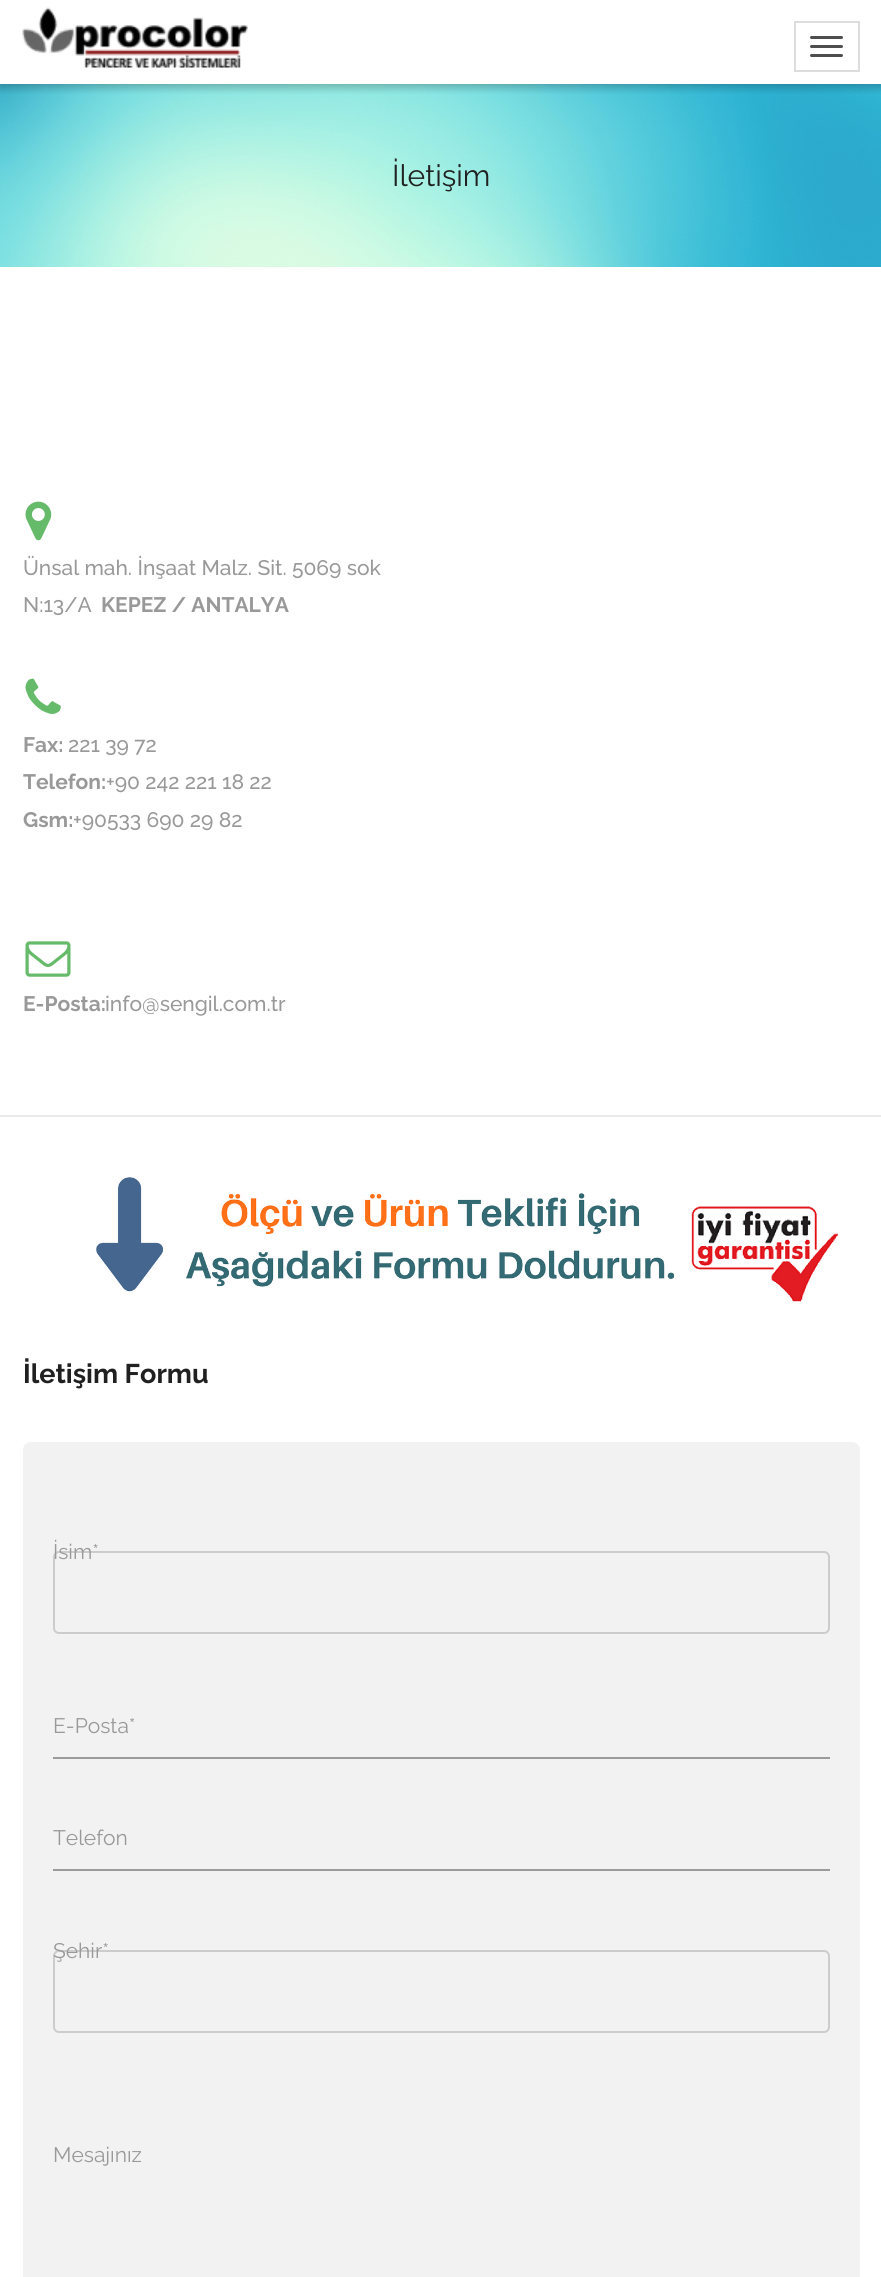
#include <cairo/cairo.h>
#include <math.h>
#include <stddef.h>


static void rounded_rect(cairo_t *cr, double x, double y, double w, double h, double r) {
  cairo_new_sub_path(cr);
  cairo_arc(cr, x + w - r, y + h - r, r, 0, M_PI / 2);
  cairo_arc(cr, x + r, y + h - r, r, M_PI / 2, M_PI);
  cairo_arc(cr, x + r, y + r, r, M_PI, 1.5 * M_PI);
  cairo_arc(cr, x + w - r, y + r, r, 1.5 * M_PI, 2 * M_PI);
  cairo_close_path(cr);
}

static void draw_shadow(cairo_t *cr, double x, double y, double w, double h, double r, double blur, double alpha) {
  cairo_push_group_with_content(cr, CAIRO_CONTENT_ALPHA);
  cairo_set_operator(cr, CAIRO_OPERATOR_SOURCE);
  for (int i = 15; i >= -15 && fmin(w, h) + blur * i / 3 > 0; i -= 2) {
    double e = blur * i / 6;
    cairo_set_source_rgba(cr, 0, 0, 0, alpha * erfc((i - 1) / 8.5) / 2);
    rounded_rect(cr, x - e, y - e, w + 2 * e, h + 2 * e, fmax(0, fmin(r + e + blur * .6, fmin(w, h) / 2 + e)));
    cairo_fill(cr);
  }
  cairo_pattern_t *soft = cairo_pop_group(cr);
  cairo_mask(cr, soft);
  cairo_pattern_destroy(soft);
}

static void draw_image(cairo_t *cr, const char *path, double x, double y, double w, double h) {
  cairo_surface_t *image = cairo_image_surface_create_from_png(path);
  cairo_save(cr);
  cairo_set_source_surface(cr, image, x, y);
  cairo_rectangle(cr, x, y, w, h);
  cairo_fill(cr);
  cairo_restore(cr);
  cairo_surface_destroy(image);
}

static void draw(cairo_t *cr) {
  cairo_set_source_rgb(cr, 1, 1, 1);
  cairo_paint(cr);
  draw_image(cr, "images/2.png", 0, 84, 881, 183);
  cairo_save(cr);
  cairo_rectangle(cr, 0, 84, 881, 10);
  cairo_clip(cr);
  cairo_set_source_rgb(cr, 0, 0, 0);
  draw_shadow(cr, 0, 3, 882, 84, 0, 7.5, 0.12);
  cairo_restore(cr);
  cairo_save(cr);
  cairo_rectangle(cr, 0, 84, 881, 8);
  cairo_clip(cr);
  cairo_set_source_rgb(cr, 0, 0, 0);
  draw_shadow(cr, 0, 3, 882, 84, 0, 4, 0.16);
  cairo_restore(cr);
  draw_image(cr, "images/1.png", 22, 7, 226, 61);
  cairo_rectangle(cr, 795, 22, 64, 49);
  cairo_set_source_rgb(cr, 221 / 255.0, 221 / 255.0, 221 / 255.0);
  cairo_stroke(cr);
  cairo_set_source_rgb(cr, 78 / 255.0, 78 / 255.0, 78 / 255.0);
  rounded_rect(cr, 810, 36, 33, 3, 1.5);
  cairo_fill(cr);
  rounded_rect(cr, 810, 45, 33, 3, 1.5);
  cairo_fill(cr);
  rounded_rect(cr, 810, 54, 33, 3, 1.5);
  cairo_fill(cr);
  draw_image(cr, "images/3.png", 25, 501, 27, 40);
  draw_image(cr, "images/4.png", 25, 678, 36, 36);
  draw_image(cr, "images/5.png", 25, 941, 46, 36);
  cairo_set_source_rgb(cr, 235 / 255.0, 235 / 255.0, 235 / 255.0);
  cairo_rectangle(cr, 0, 1115, 881, 2);
  cairo_fill(cr);
  draw_image(cr, "images/6.png", 96, 1177, 743, 125);
  cairo_set_source_rgb(cr, 242 / 255.0, 242 / 255.0, 242 / 255.0);
  rounded_rect(cr, 23, 1442, 837, 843, 8);
  cairo_fill(cr);
  rounded_rect(cr, 54, 1552, 775, 81, 5);
  cairo_set_source_rgb(cr, 204 / 255.0, 204 / 255.0, 204 / 255.0);
  cairo_stroke(cr);
  cairo_set_source_rgb(cr, 155 / 255.0, 155 / 255.0, 155 / 255.0);
  cairo_rectangle(cr, 53, 1757, 777, 2);
  cairo_fill(cr);
  cairo_rectangle(cr, 53, 1869, 777, 2);
  cairo_fill(cr);
  rounded_rect(cr, 54, 1951, 775, 81, 5);
  cairo_set_source_rgb(cr, 204 / 255.0, 204 / 255.0, 204 / 255.0);
  cairo_stroke(cr);
  cairo_select_font_face(cr, "Raleway", CAIRO_FONT_SLANT_NORMAL, CAIRO_FONT_WEIGHT_NORMAL);
  cairo_set_font_size(cr, 30);
  cairo_set_source_rgb(cr, 32 / 255.0, 32 / 255.0, 32 / 255.0);
  cairo_move_to(cr, 392, 186);
  cairo_show_text(cr, "İletişim");
  cairo_select_font_face(cr, "Raleway Medium", CAIRO_FONT_SLANT_NORMAL, CAIRO_FONT_WEIGHT_NORMAL);
  cairo_set_font_size(cr, 21);
  cairo_set_source_rgb(cr, 153 / 255.0, 153 / 255.0, 153 / 255.0);
  cairo_move_to(cr, 23, 575);
  cairo_show_text(cr, "Ünsal mah. İnşaat Malz. Sit. 5069 sok");
  cairo_move_to(cr, 23, 612);
  cairo_show_text(cr, "N:13/A");
  cairo_select_font_face(cr, "Raleway", CAIRO_FONT_SLANT_NORMAL, CAIRO_FONT_WEIGHT_BOLD);
  cairo_move_to(cr, 101, 612);
  cairo_show_text(cr, "KEPEZ / ANTALYA");
  cairo_move_to(cr, 23, 752);
  cairo_show_text(cr, "Fax:");
  cairo_select_font_face(cr, "Raleway Medium", CAIRO_FONT_SLANT_NORMAL, CAIRO_FONT_WEIGHT_NORMAL);
  cairo_move_to(cr, 68, 752);
  cairo_show_text(cr, "221 39 72");
  cairo_save(cr);
  cairo_rectangle(cr, 23, 726, 837, 113);
  cairo_clip(cr);
  cairo_select_font_face(cr, "Raleway", CAIRO_FONT_SLANT_NORMAL, CAIRO_FONT_WEIGHT_BOLD);
  cairo_move_to(cr, 23, 789);
  cairo_show_text(cr, "Telefon:");
  cairo_restore(cr);
  cairo_move_to(cr, 106, 789);
  cairo_show_text(cr, "+90 242 221 18 22");
  cairo_select_font_face(cr, "Raleway", CAIRO_FONT_SLANT_NORMAL, CAIRO_FONT_WEIGHT_BOLD);
  cairo_move_to(cr, 23, 827);
  cairo_show_text(cr, "Gsm:");
  cairo_select_font_face(cr, "Raleway Medium", CAIRO_FONT_SLANT_NORMAL, CAIRO_FONT_WEIGHT_NORMAL);
  cairo_move_to(cr, 73, 827);
  cairo_show_text(cr, "+90533 690 29 82");
  cairo_select_font_face(cr, "Raleway", CAIRO_FONT_SLANT_NORMAL, CAIRO_FONT_WEIGHT_BOLD);
  cairo_move_to(cr, 23, 1011);
  cairo_show_text(cr, "E-Posta:");
  cairo_select_font_face(cr, "Raleway Medium", CAIRO_FONT_SLANT_NORMAL, CAIRO_FONT_WEIGHT_NORMAL);
  cairo_move_to(cr, 105, 1011);
  cairo_show_text(cr, "info@sengil.com.tr");
  cairo_select_font_face(cr, "Raleway", CAIRO_FONT_SLANT_NORMAL, CAIRO_FONT_WEIGHT_BOLD);
  cairo_set_font_size(cr, 27);
  cairo_set_source_rgb(cr, 32 / 255.0, 32 / 255.0, 32 / 255.0);
  cairo_move_to(cr, 23, 1383);
  cairo_show_text(cr, "İletişim Formu");
  cairo_select_font_face(cr, "Raleway", CAIRO_FONT_SLANT_NORMAL, CAIRO_FONT_WEIGHT_NORMAL);
  cairo_set_font_size(cr, 21);
  cairo_set_source_rgb(cr, 153 / 255.0, 153 / 255.0, 153 / 255.0);
  cairo_move_to(cr, 53, 1559);
  cairo_show_text(cr, "İsim*");
  cairo_move_to(cr, 53, 1733);
  cairo_show_text(cr, "E-Posta*");
  cairo_move_to(cr, 53, 1845);
  cairo_show_text(cr, "Telefon");
  cairo_move_to(cr, 53, 1958);
  cairo_show_text(cr, "Şehir*");
  cairo_move_to(cr, 53, 2162);
  cairo_show_text(cr, "Mesajınız");
}

int main(void) {
  cairo_surface_t *surface = cairo_image_surface_create(CAIRO_FORMAT_RGB24, 881, 2277);
  cairo_t *cr = cairo_create(surface);
  cairo_font_options_t *options = cairo_font_options_create();
  cairo_font_options_set_hint_metrics(options, CAIRO_HINT_METRICS_OFF);
  cairo_font_options_set_hint_style(options, CAIRO_HINT_STYLE_NONE);
  cairo_set_font_options(cr, options);
  cairo_set_miter_limit(cr, 4);
  draw(cr);
  cairo_surface_write_to_png(surface, "out.png");
  cairo_font_options_destroy(options);
  cairo_destroy(cr);
  cairo_surface_destroy(surface);
  return 0;
}
